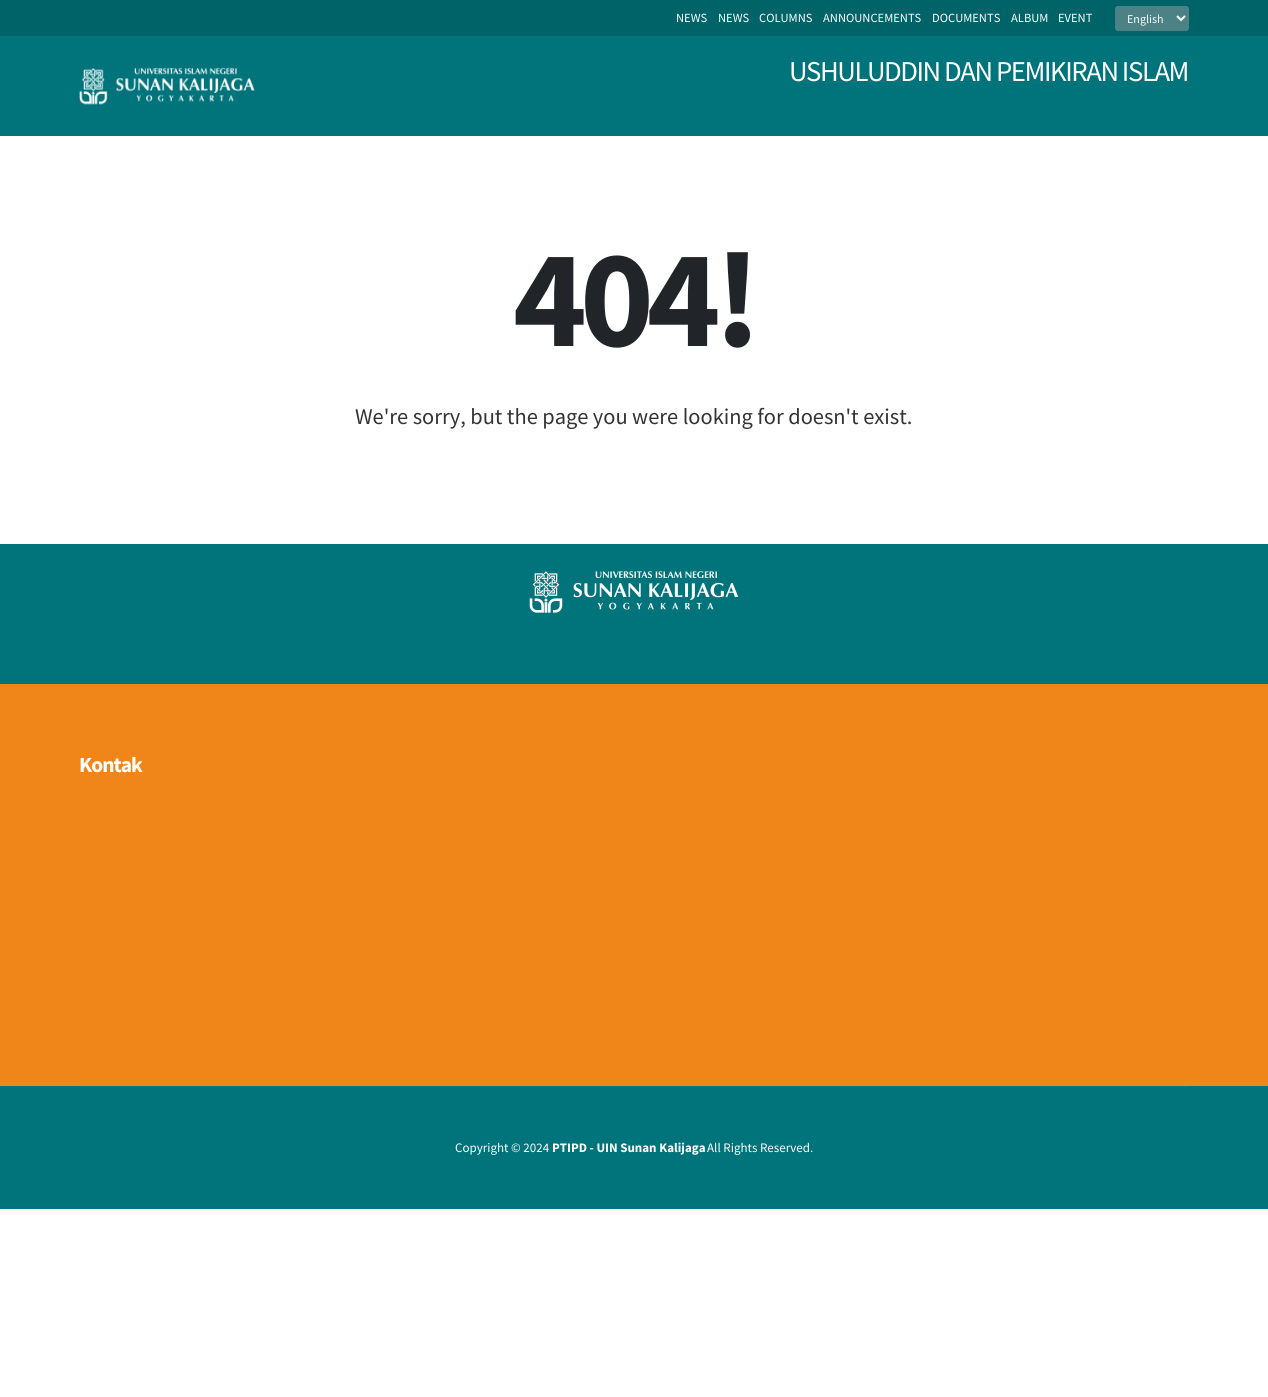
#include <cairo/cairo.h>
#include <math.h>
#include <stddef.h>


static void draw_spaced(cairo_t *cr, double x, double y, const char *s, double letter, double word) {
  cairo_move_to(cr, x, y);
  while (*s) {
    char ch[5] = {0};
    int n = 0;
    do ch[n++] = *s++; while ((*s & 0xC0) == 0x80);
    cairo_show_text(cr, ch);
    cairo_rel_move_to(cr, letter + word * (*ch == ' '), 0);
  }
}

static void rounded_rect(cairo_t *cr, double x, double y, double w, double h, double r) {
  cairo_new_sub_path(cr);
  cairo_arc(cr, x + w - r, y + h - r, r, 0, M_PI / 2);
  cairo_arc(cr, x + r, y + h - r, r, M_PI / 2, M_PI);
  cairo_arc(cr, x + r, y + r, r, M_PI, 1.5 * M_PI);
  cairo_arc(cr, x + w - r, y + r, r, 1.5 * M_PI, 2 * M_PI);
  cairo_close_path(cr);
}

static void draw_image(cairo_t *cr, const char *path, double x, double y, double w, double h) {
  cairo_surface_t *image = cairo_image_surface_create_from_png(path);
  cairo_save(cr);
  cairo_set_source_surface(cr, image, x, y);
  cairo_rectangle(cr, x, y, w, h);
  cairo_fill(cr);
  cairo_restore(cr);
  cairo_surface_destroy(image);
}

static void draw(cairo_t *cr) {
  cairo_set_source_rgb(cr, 1, 1, 1);
  cairo_paint(cr);
  cairo_set_source_rgb(cr, 0, 99 / 255.0, 104 / 255.0);
  cairo_rectangle(cr, 0, 0, 1268, 36);
  cairo_fill(cr);
  cairo_set_source_rgb(cr, 76 / 255.0, 130 / 255.0, 133 / 255.0);
  rounded_rect(cr, 1115, 6, 74, 25, 3);
  cairo_fill(cr);
  cairo_new_path(cr);
  cairo_move_to(cr, 1177, 16);
  cairo_line_to(cr, 1181, 20);
  cairo_line_to(cr, 1185, 16);
  cairo_set_source_rgb(cr, 245 / 255.0, 250 / 255.0, 250 / 255.0);
  cairo_stroke(cr);
  cairo_set_source_rgb(cr, 1 / 255.0, 116 / 255.0, 123 / 255.0);
  cairo_rectangle(cr, 0, 36, 1268, 100);
  cairo_fill(cr);
  draw_image(cr, "images/1.png", 79, 67, 176, 38);
  cairo_rectangle(cr, 0, 544, 1268, 140);
  cairo_fill(cr);
  draw_image(cr, "images/2.png", 529, 571, 210, 42);
  cairo_set_source_rgb(cr, 240 / 255.0, 134 / 255.0, 25 / 255.0);
  cairo_rectangle(cr, 0, 684, 1268, 402);
  cairo_fill(cr);
  cairo_set_source_rgb(cr, 1 / 255.0, 116 / 255.0, 123 / 255.0);
  cairo_rectangle(cr, 0, 1086, 1268, 123);
  cairo_fill(cr);
  cairo_set_source_rgb(cr, 14 / 255.0, 123 / 255.0, 130 / 255.0);
  cairo_rectangle(cr, 79, 1086, 1110, 1);
  cairo_fill(cr);
  cairo_select_font_face(cr, "Source Sans Pro", CAIRO_FONT_SLANT_NORMAL, CAIRO_FONT_WEIGHT_NORMAL);
  cairo_set_font_size(cr, 12.5);
  cairo_set_source_rgb(cr, 1, 1, 1);
  cairo_move_to(cr, 676, 22);
  cairo_show_text(cr, "NEWS");
  cairo_move_to(cr, 718, 22);
  cairo_show_text(cr, "NEWS");
  cairo_move_to(cr, 759, 22);
  cairo_show_text(cr, "COLUMNS");
  cairo_move_to(cr, 823, 22);
  cairo_show_text(cr, "ANNOUNCEMENTS");
  cairo_move_to(cr, 932, 22);
  cairo_show_text(cr, "DOCUMENTS");
  cairo_move_to(cr, 1011, 22);
  cairo_show_text(cr, "ALBUM");
  cairo_move_to(cr, 1058, 22);
  cairo_show_text(cr, "EVENT");
  cairo_set_font_size(cr, 12);
  cairo_set_source_rgb(cr, 245 / 255.0, 250 / 255.0, 250 / 255.0);
  cairo_move_to(cr, 1127, 23);
  cairo_show_text(cr, "English");
  cairo_set_font_size(cr, 28.75);
  cairo_set_source_rgb(cr, 1, 1, 1);
  draw_spaced(cr, 789, 81, "USHULUDDIN DAN PEMIKIRAN ISLAM", -1.45, 0);
  cairo_select_font_face(cr, "Source Sans Pro", CAIRO_FONT_SLANT_NORMAL, CAIRO_FONT_WEIGHT_BOLD);
  cairo_set_font_size(cr, 140);
  cairo_set_source_rgb(cr, 33 / 255.0, 37 / 255.0, 41 / 255.0);
  draw_spaced(cr, 513, 346, "404!", -7, 0);
  cairo_select_font_face(cr, "Source Sans Pro", CAIRO_FONT_SLANT_NORMAL, CAIRO_FONT_WEIGHT_NORMAL);
  cairo_set_font_size(cr, 22.4);
  cairo_set_source_rgb(cr, 51 / 255.0, 51 / 255.0, 51 / 255.0);
  cairo_move_to(cr, 355, 424);
  cairo_show_text(cr, "We're sorry, but the page you were looking for doesn't exist.");
  cairo_select_font_face(cr, "Source Sans Pro", CAIRO_FONT_SLANT_NORMAL, CAIRO_FONT_WEIGHT_BOLD);
  cairo_set_font_size(cr, 21.5);
  cairo_set_source_rgb(cr, 1, 1, 1);
  draw_spaced(cr, 79, 772, "Kontak", -1, 0);
  cairo_select_font_face(cr, "Source Sans Pro", CAIRO_FONT_SLANT_NORMAL, CAIRO_FONT_WEIGHT_NORMAL);
  cairo_set_font_size(cr, 13);
  cairo_move_to(cr, 455, 1152);
  cairo_show_text(cr, "Copyright © 2024");
  cairo_select_font_face(cr, "Source Sans Pro", CAIRO_FONT_SLANT_NORMAL, CAIRO_FONT_WEIGHT_BOLD);
  cairo_move_to(cr, 552, 1152);
  cairo_show_text(cr, "PTIPD - UIN Sunan Kalijaga");
  cairo_select_font_face(cr, "Source Sans Pro", CAIRO_FONT_SLANT_NORMAL, CAIRO_FONT_WEIGHT_NORMAL);
  cairo_move_to(cr, 707, 1152);
  cairo_show_text(cr, "All Rights Reserved.");
}

int main(void) {
  cairo_surface_t *surface = cairo_image_surface_create(CAIRO_FORMAT_RGB24, 1268, 1397);
  cairo_t *cr = cairo_create(surface);
  cairo_font_options_t *options = cairo_font_options_create();
  cairo_font_options_set_hint_metrics(options, CAIRO_HINT_METRICS_OFF);
  cairo_font_options_set_hint_style(options, CAIRO_HINT_STYLE_NONE);
  cairo_set_font_options(cr, options);
  cairo_set_miter_limit(cr, 4);
  draw(cr);
  cairo_surface_write_to_png(surface, "out.png");
  cairo_font_options_destroy(options);
  cairo_destroy(cr);
  cairo_surface_destroy(surface);
  return 0;
}
